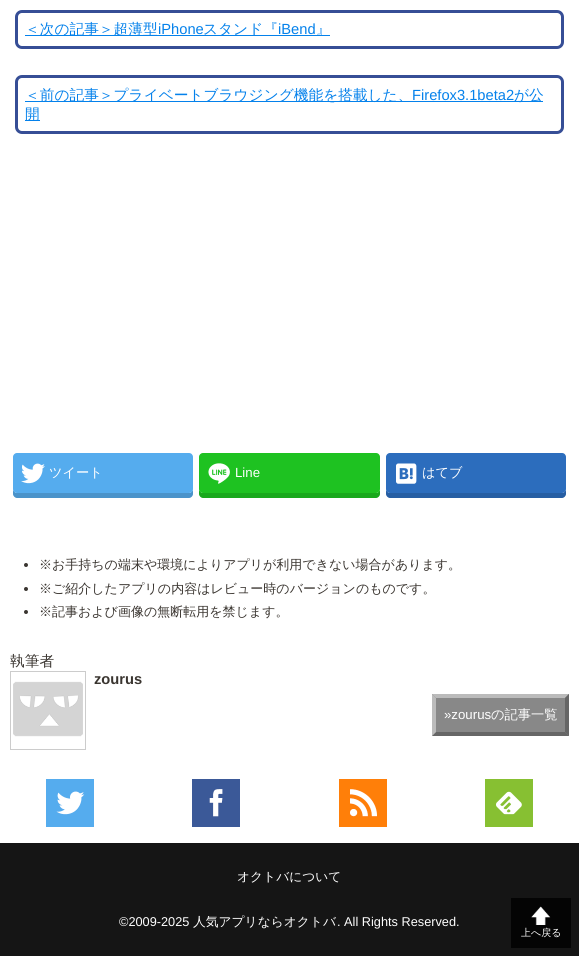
#include <cairo/cairo.h>
#include <math.h>
#include <stddef.h>


static void rounded_rect(cairo_t *cr, double x, double y, double w, double h, double r) {
  cairo_new_sub_path(cr);
  cairo_arc(cr, x + w - r, y + h - r, r, 0, M_PI / 2);
  cairo_arc(cr, x + r, y + h - r, r, M_PI / 2, M_PI);
  cairo_arc(cr, x + r, y + r, r, M_PI, 1.5 * M_PI);
  cairo_arc(cr, x + w - r, y + r, r, 1.5 * M_PI, 2 * M_PI);
  cairo_close_path(cr);
}

static void draw_image(cairo_t *cr, const char *path, double x, double y, double w, double h) {
  cairo_surface_t *image = cairo_image_surface_create_from_png(path);
  cairo_save(cr);
  cairo_set_source_surface(cr, image, x, y);
  cairo_rectangle(cr, x, y, w, h);
  cairo_fill(cr);
  cairo_restore(cr);
  cairo_surface_destroy(image);
}

static void draw(cairo_t *cr) {
  cairo_set_source_rgb(cr, 1, 1, 1);
  cairo_paint(cr);
  rounded_rect(cr, 16.5, 11.5, 546, 36, 5.5);
  cairo_set_source_rgb(cr, 54 / 255.0, 78 / 255.0, 150 / 255.0);
  cairo_set_line_width(cr, 3);
  cairo_stroke(cr);
  cairo_set_source_rgb(cr, 4 / 255.0, 129 / 255.0, 235 / 255.0);
  cairo_rectangle(cr, 25, 35, 305, 1);
  cairo_fill(cr);
  rounded_rect(cr, 16.5, 76.5, 546, 56, 5.5);
  cairo_set_source_rgb(cr, 54 / 255.0, 78 / 255.0, 150 / 255.0);
  cairo_stroke(cr);
  cairo_set_source_rgb(cr, 4 / 255.0, 129 / 255.0, 235 / 255.0);
  cairo_rectangle(cr, 25, 101, 518, 1);
  cairo_fill(cr);
  cairo_rectangle(cr, 25, 120, 15, 1);
  cairo_fill(cr);
  cairo_set_source_rgb(cr, 74 / 255.0, 147 / 255.0, 202 / 255.0);
  cairo_new_path(cr);
  cairo_move_to(cr, 13, 489);
  cairo_line_to(cr, 13, 494);
  cairo_curve_to(cr, 13, 496, 15, 498, 17, 498);
  cairo_line_to(cr, 189, 498);
  cairo_curve_to(cr, 191, 498, 193, 496, 193, 494);
  cairo_line_to(cr, 193, 489);
  cairo_curve_to(cr, 193, 491, 191, 493, 189, 493);
  cairo_line_to(cr, 17, 493);
  cairo_curve_to(cr, 15, 493, 13, 491, 13, 489);
  cairo_close_path(cr);
  cairo_fill(cr);
  cairo_set_source_rgb(cr, 85 / 255.0, 172 / 255.0, 238 / 255.0);
  rounded_rect(cr, 13, 453, 180, 40, 4);
  cairo_fill(cr);
  draw_image(cr, "images/1.png", 21, 463, 24, 21);
  cairo_set_source_rgb(cr, 25 / 255.0, 168 / 255.0, 28 / 255.0);
  cairo_new_path(cr);
  cairo_move_to(cr, 199, 489);
  cairo_line_to(cr, 199, 494);
  cairo_curve_to(cr, 199, 496, 201, 498, 203, 498);
  cairo_line_to(cr, 376, 498);
  cairo_curve_to(cr, 378, 498, 380, 496, 380, 494);
  cairo_line_to(cr, 380, 489);
  cairo_curve_to(cr, 380, 491, 378, 493, 376, 493);
  cairo_line_to(cr, 203, 493);
  cairo_curve_to(cr, 201, 493, 199, 491, 199, 489);
  cairo_close_path(cr);
  cairo_fill(cr);
  cairo_set_source_rgb(cr, 30 / 255.0, 194 / 255.0, 33 / 255.0);
  rounded_rect(cr, 199, 453, 181, 40, 4);
  cairo_fill(cr);
  draw_image(cr, "images/2.png", 208, 463, 22, 21);
  cairo_set_source_rgb(cr, 38 / 255.0, 94 / 255.0, 163 / 255.0);
  cairo_new_path(cr);
  cairo_move_to(cr, 386, 489);
  cairo_line_to(cr, 386, 494);
  cairo_curve_to(cr, 386, 496, 388, 498, 390, 498);
  cairo_line_to(cr, 562, 498);
  cairo_curve_to(cr, 564, 498, 566, 496, 566, 494);
  cairo_line_to(cr, 566, 489);
  cairo_curve_to(cr, 566, 491, 564, 493, 562, 493);
  cairo_line_to(cr, 390, 493);
  cairo_curve_to(cr, 388, 493, 386, 491, 386, 489);
  cairo_close_path(cr);
  cairo_fill(cr);
  cairo_set_source_rgb(cr, 44 / 255.0, 109 / 255.0, 189 / 255.0);
  rounded_rect(cr, 386, 453, 180, 40, 4);
  cairo_fill(cr);
  draw_image(cr, "images/3.png", 396, 463, 21, 21);
  cairo_set_source_rgb(cr, 58 / 255.0, 53 / 255.0, 48 / 255.0);
  cairo_arc(cr, 26, 565, 2, 0, 2 * M_PI);
  cairo_fill(cr);
  cairo_arc(cr, 26, 589, 2, 0, 2 * M_PI);
  cairo_fill(cr);
  cairo_arc(cr, 26, 612, 2, 0, 2 * M_PI);
  cairo_fill(cr);
  cairo_rectangle(cr, 10.5, 671.5, 75, 78);
  cairo_set_source_rgb(cr, 204 / 255.0, 204 / 255.0, 204 / 255.0);
  cairo_set_line_width(cr, 1);
  cairo_stroke(cr);
  draw_image(cr, "images/4.png", 13, 681, 70, 56);
  cairo_set_source_rgb(cr, 136 / 255.0, 136 / 255.0, 136 / 255.0);
  cairo_rectangle(cr, 432, 694, 137, 42);
  cairo_fill(cr);
  cairo_set_source_rgb(cr, 187 / 255.0, 187 / 255.0, 187 / 255.0);
  cairo_new_path(cr);
  cairo_move_to(cr, 432, 694);
  cairo_line_to(cr, 569, 694);
  cairo_line_to(cr, 565, 698);
  cairo_line_to(cr, 436, 698);
  cairo_close_path(cr);
  cairo_fill(cr);
  cairo_set_source_rgb(cr, 102 / 255.0, 102 / 255.0, 102 / 255.0);
  cairo_new_path(cr);
  cairo_move_to(cr, 569, 694);
  cairo_line_to(cr, 569, 736);
  cairo_line_to(cr, 565, 732);
  cairo_line_to(cr, 565, 698);
  cairo_close_path(cr);
  cairo_fill(cr);
  cairo_new_path(cr);
  cairo_move_to(cr, 569, 736);
  cairo_line_to(cr, 432, 736);
  cairo_line_to(cr, 436, 732);
  cairo_line_to(cr, 565, 732);
  cairo_close_path(cr);
  cairo_fill(cr);
  cairo_set_source_rgb(cr, 187 / 255.0, 187 / 255.0, 187 / 255.0);
  cairo_new_path(cr);
  cairo_move_to(cr, 432, 736);
  cairo_line_to(cr, 432, 694);
  cairo_line_to(cr, 436, 698);
  cairo_line_to(cr, 436, 732);
  cairo_close_path(cr);
  cairo_fill(cr);
  draw_image(cr, "images/5.png", 46, 779, 48, 48);
  draw_image(cr, "images/6.png", 192, 779, 48, 48);
  draw_image(cr, "images/7.png", 339, 779, 48, 48);
  draw_image(cr, "images/8.png", 485, 779, 48, 48);
  cairo_set_source_rgb(cr, 21 / 255.0, 21 / 255.0, 21 / 255.0);
  cairo_rectangle(cr, 0, 843, 579, 113);
  cairo_fill(cr);
  cairo_set_source_rgb(cr, 4 / 255.0, 4 / 255.0, 4 / 255.0);
  cairo_rectangle(cr, 511, 898, 60, 50);
  cairo_fill(cr);
  draw_image(cr, "images/9.png", 531, 906, 20, 19);
  cairo_select_font_face(cr, "WenQuanYi Zen Hei Medium", CAIRO_FONT_SLANT_NORMAL, CAIRO_FONT_WEIGHT_NORMAL);
  cairo_set_font_size(cr, 14.7);
  cairo_set_source_rgb(cr, 4 / 255.0, 129 / 255.0, 235 / 255.0);
  cairo_move_to(cr, 25, 34);
  cairo_show_text(cr, "＜次の記事＞超薄型");
  cairo_select_font_face(cr, "Liberation Sans", CAIRO_FONT_SLANT_NORMAL, CAIRO_FONT_WEIGHT_NORMAL);
  cairo_move_to(cr, 158, 34);
  cairo_show_text(cr, "iPhone");
  cairo_select_font_face(cr, "WenQuanYi Zen Hei Medium", CAIRO_FONT_SLANT_NORMAL, CAIRO_FONT_WEIGHT_NORMAL);
  cairo_move_to(cr, 203, 34);
  cairo_show_text(cr, "スタンド『");
  cairo_select_font_face(cr, "Liberation Sans", CAIRO_FONT_SLANT_NORMAL, CAIRO_FONT_WEIGHT_NORMAL);
  cairo_move_to(cr, 278, 34);
  cairo_show_text(cr, "iBend");
  cairo_select_font_face(cr, "WenQuanYi Zen Hei Medium", CAIRO_FONT_SLANT_NORMAL, CAIRO_FONT_WEIGHT_NORMAL);
  cairo_move_to(cr, 316, 34);
  cairo_show_text(cr, "』");
  cairo_move_to(cr, 25, 100);
  cairo_show_text(cr, "＜前の記事＞プライベートブラウジング機能を搭載した、");
  cairo_select_font_face(cr, "Liberation Sans", CAIRO_FONT_SLANT_NORMAL, CAIRO_FONT_WEIGHT_NORMAL);
  cairo_move_to(cr, 412, 100);
  cairo_show_text(cr, "Firefox3.1beta2");
  cairo_select_font_face(cr, "WenQuanYi Zen Hei Medium", CAIRO_FONT_SLANT_NORMAL, CAIRO_FONT_WEIGHT_NORMAL);
  cairo_move_to(cr, 514, 100);
  cairo_show_text(cr, "が公");
  cairo_move_to(cr, 25, 119);
  cairo_show_text(cr, "開");
  cairo_set_font_size(cr, 13.25);
  cairo_set_source_rgb(cr, 1, 1, 1);
  cairo_move_to(cr, 49, 477);
  cairo_show_text(cr, "ツイート");
  cairo_select_font_face(cr, "Liberation Sans", CAIRO_FONT_SLANT_NORMAL, CAIRO_FONT_WEIGHT_NORMAL);
  cairo_move_to(cr, 235, 477);
  cairo_show_text(cr, "Line");
  cairo_select_font_face(cr, "WenQuanYi Zen Hei Medium", CAIRO_FONT_SLANT_NORMAL, CAIRO_FONT_WEIGHT_NORMAL);
  cairo_move_to(cr, 422, 477);
  cairo_show_text(cr, "はてブ");
  cairo_set_font_size(cr, 13);
  cairo_set_source_rgb(cr, 58 / 255.0, 53 / 255.0, 48 / 255.0);
  cairo_move_to(cr, 39, 569);
  cairo_show_text(cr, "※お手持ちの端末や環境によりアプリが利用できない場合があります。");
  cairo_move_to(cr, 39, 593);
  cairo_show_text(cr, "※ご紹介したアプリの内容はレビュー時のバージョンのものです。");
  cairo_move_to(cr, 39, 616);
  cairo_show_text(cr, "※記事および画像の無断転用を禁じます。");
  cairo_set_font_size(cr, 14.7);
  cairo_move_to(cr, 10, 666);
  cairo_show_text(cr, "執筆者");
  cairo_select_font_face(cr, "Liberation Sans", CAIRO_FONT_SLANT_NORMAL, CAIRO_FONT_WEIGHT_BOLD);
  cairo_move_to(cr, 94, 684);
  cairo_show_text(cr, "zourus");
  cairo_select_font_face(cr, "Liberation Sans", CAIRO_FONT_SLANT_NORMAL, CAIRO_FONT_WEIGHT_NORMAL);
  cairo_set_font_size(cr, 13.25);
  cairo_set_source_rgb(cr, 1, 1, 1);
  cairo_move_to(cr, 444, 719);
  cairo_show_text(cr, "»zourus");
  cairo_select_font_face(cr, "WenQuanYi Zen Hei Medium", CAIRO_FONT_SLANT_NORMAL, CAIRO_FONT_WEIGHT_NORMAL);
  cairo_move_to(cr, 491, 719);
  cairo_show_text(cr, "の記事一覧");
  cairo_set_font_size(cr, 12.75);
  cairo_move_to(cr, 237, 881);
  cairo_show_text(cr, "オクトバについて");
  cairo_select_font_face(cr, "Liberation Sans", CAIRO_FONT_SLANT_NORMAL, CAIRO_FONT_WEIGHT_NORMAL);
  cairo_move_to(cr, 119, 926);
  cairo_show_text(cr, "©2009-2025");
  cairo_select_font_face(cr, "WenQuanYi Zen Hei Medium", CAIRO_FONT_SLANT_NORMAL, CAIRO_FONT_WEIGHT_NORMAL);
  cairo_move_to(cr, 193, 926);
  cairo_show_text(cr, "人気アプリならオクトバ");
  cairo_select_font_face(cr, "Liberation Sans", CAIRO_FONT_SLANT_NORMAL, CAIRO_FONT_WEIGHT_NORMAL);
  cairo_move_to(cr, 337, 926);
  cairo_show_text(cr, ". All Rights Reserved.");
  cairo_select_font_face(cr, "WenQuanYi Zen Hei Medium", CAIRO_FONT_SLANT_NORMAL, CAIRO_FONT_WEIGHT_NORMAL);
  cairo_set_font_size(cr, 10);
  cairo_move_to(cr, 521, 936);
  cairo_show_text(cr, "上へ戻る");
}

int main(void) {
  cairo_surface_t *surface = cairo_image_surface_create(CAIRO_FORMAT_RGB24, 579, 956);
  cairo_t *cr = cairo_create(surface);
  cairo_font_options_t *options = cairo_font_options_create();
  cairo_font_options_set_hint_metrics(options, CAIRO_HINT_METRICS_OFF);
  cairo_font_options_set_hint_style(options, CAIRO_HINT_STYLE_NONE);
  cairo_set_font_options(cr, options);
  cairo_set_miter_limit(cr, 4);
  draw(cr);
  cairo_surface_write_to_png(surface, "out.png");
  cairo_font_options_destroy(options);
  cairo_destroy(cr);
  cairo_surface_destroy(surface);
  return 0;
}
